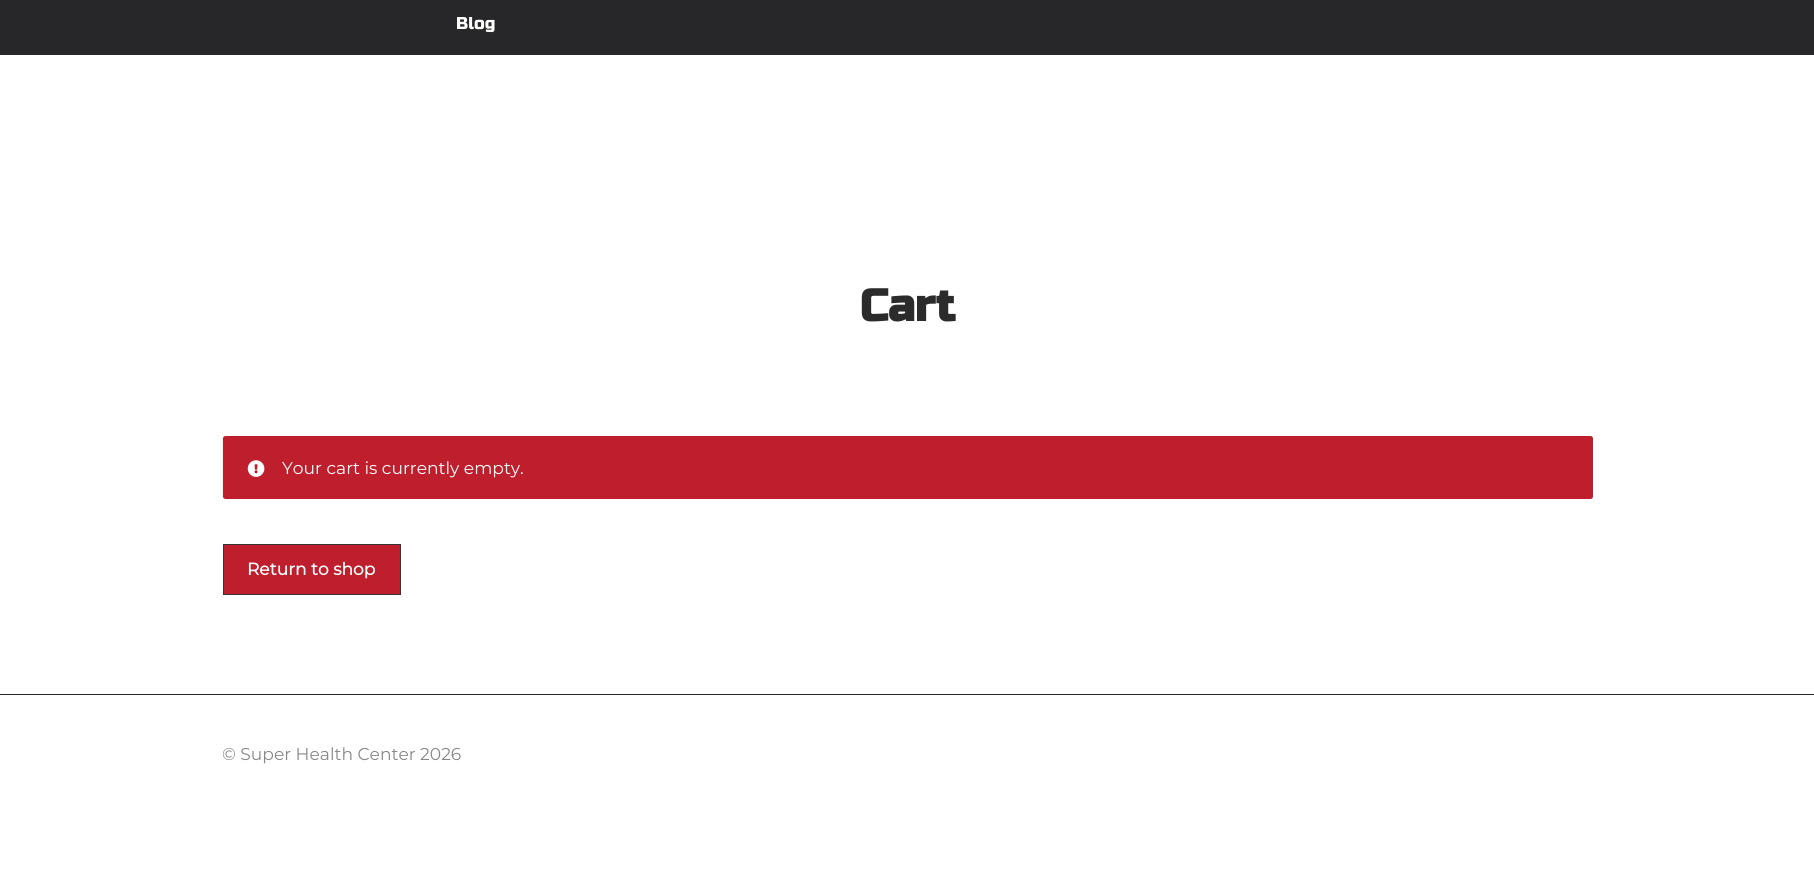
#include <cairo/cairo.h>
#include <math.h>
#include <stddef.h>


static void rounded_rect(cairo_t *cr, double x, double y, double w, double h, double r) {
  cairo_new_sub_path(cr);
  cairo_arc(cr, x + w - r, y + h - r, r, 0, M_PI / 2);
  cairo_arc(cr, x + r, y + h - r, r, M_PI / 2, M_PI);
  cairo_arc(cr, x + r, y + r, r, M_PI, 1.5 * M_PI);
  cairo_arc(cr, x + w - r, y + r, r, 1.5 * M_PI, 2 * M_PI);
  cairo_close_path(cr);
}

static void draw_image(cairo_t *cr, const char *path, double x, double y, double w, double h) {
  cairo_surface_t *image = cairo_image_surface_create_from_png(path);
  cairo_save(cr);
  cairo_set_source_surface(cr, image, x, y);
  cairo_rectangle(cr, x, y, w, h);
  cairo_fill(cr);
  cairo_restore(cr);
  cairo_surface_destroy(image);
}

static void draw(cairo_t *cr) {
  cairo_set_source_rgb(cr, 1, 1, 1);
  cairo_paint(cr);
  cairo_set_source_rgb(cr, 39 / 255.0, 39 / 255.0, 42 / 255.0);
  cairo_rectangle(cr, 0, 0, 1814, 55);
  cairo_fill(cr);
  cairo_set_source_rgb(cr, 191 / 255.0, 30 / 255.0, 45 / 255.0);
  rounded_rect(cr, 223, 436, 1370, 63, 2.5);
  cairo_fill(cr);
  draw_image(cr, "images/1.png", 247, 460, 18, 17);
  cairo_rectangle(cr, 223.5, 544.5, 177, 50);
  cairo_fill_preserve(cr);
  cairo_set_source_rgb(cr, 53 / 255.0, 53 / 255.0, 53 / 255.0);
  cairo_set_line_width(cr, 1);
  cairo_stroke(cr);
  cairo_set_source_rgb(cr, 36 / 255.0, 36 / 255.0, 39 / 255.0);
  cairo_rectangle(cr, 0, 694, 1814, 1);
  cairo_fill(cr);
  cairo_select_font_face(cr, "Russo One", CAIRO_FONT_SLANT_NORMAL, CAIRO_FONT_WEIGHT_NORMAL);
  cairo_set_font_size(cr, 17.1);
  cairo_set_source_rgb(cr, 1, 1, 1);
  cairo_move_to(cr, 456, 29);
  cairo_show_text(cr, "Blog");
  cairo_select_font_face(cr, "Russo One", CAIRO_FONT_SLANT_NORMAL, CAIRO_FONT_WEIGHT_BOLD);
  cairo_set_font_size(cr, 45);
  cairo_set_source_rgb(cr, 43 / 255.0, 43 / 255.0, 43 / 255.0);
  cairo_move_to(cr, 860, 321);
  cairo_show_text(cr, "Cart");
  cairo_select_font_face(cr, "Montserrat", CAIRO_FONT_SLANT_NORMAL, CAIRO_FONT_WEIGHT_NORMAL);
  cairo_set_font_size(cr, 17.1);
  cairo_set_source_rgb(cr, 1, 1, 1);
  cairo_move_to(cr, 282, 474);
  cairo_show_text(cr, "Your cart is currently empty.");
  cairo_select_font_face(cr, "Montserrat", CAIRO_FONT_SLANT_NORMAL, CAIRO_FONT_WEIGHT_BOLD);
  cairo_move_to(cr, 247, 575);
  cairo_show_text(cr, "Return to shop");
  cairo_select_font_face(cr, "Montserrat", CAIRO_FONT_SLANT_NORMAL, CAIRO_FONT_WEIGHT_NORMAL);
  cairo_set_source_rgb(cr, 136 / 255.0, 136 / 255.0, 136 / 255.0);
  cairo_move_to(cr, 222, 760);
  cairo_show_text(cr, "© Super Health Center 2026");
}

int main(void) {
  cairo_surface_t *surface = cairo_image_surface_create(CAIRO_FORMAT_RGB24, 1814, 874);
  cairo_t *cr = cairo_create(surface);
  cairo_font_options_t *options = cairo_font_options_create();
  cairo_font_options_set_hint_metrics(options, CAIRO_HINT_METRICS_OFF);
  cairo_font_options_set_hint_style(options, CAIRO_HINT_STYLE_NONE);
  cairo_set_font_options(cr, options);
  cairo_set_miter_limit(cr, 4);
  draw(cr);
  cairo_surface_write_to_png(surface, "out.png");
  cairo_font_options_destroy(options);
  cairo_destroy(cr);
  cairo_surface_destroy(surface);
  return 0;
}
